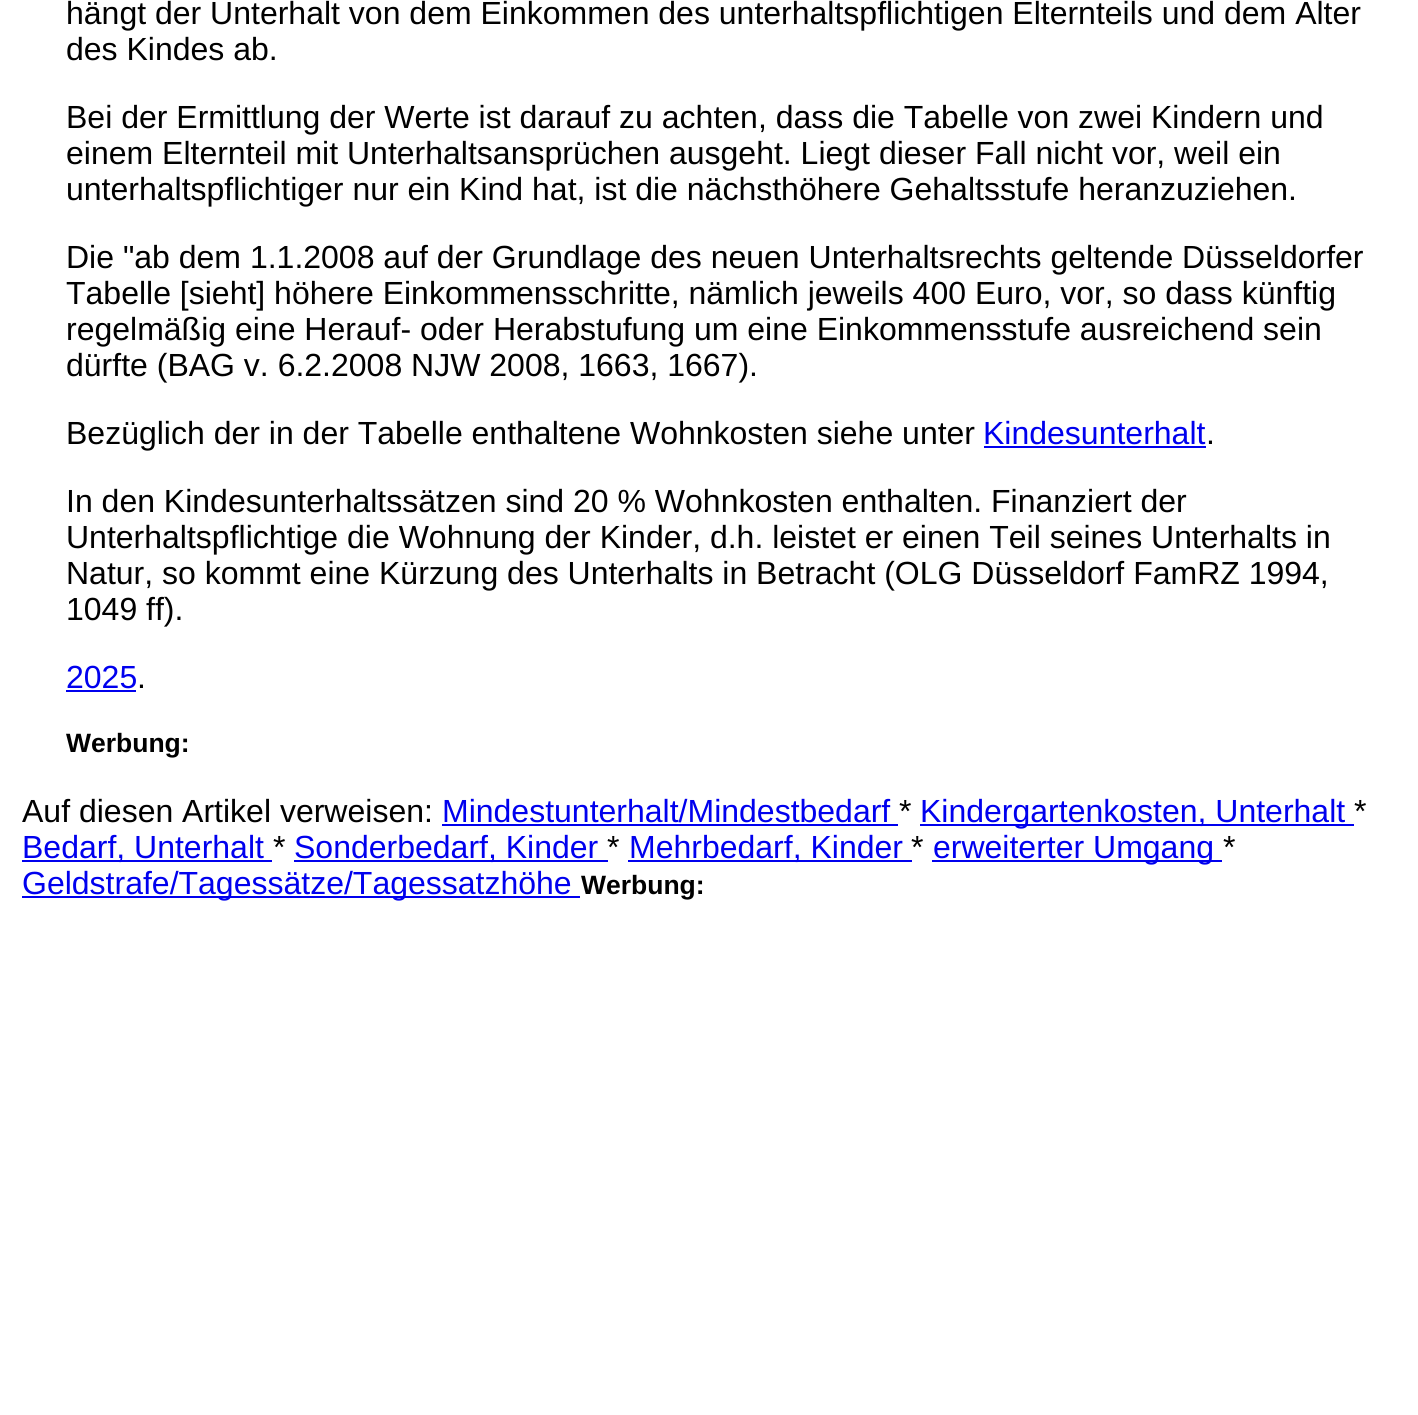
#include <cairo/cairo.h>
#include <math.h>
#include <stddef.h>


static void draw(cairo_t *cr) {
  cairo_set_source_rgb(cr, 1, 1, 1);
  cairo_paint(cr);
  cairo_set_source_rgb(cr, 0, 0, 238 / 255.0);
  cairo_rectangle(cr, 984, 446, 222, 2);
  cairo_fill(cr);
  cairo_rectangle(cr, 66, 690, 70, 2);
  cairo_fill(cr);
  cairo_rectangle(cr, 442, 824, 456, 2);
  cairo_fill(cr);
  cairo_rectangle(cr, 920, 824, 434, 2);
  cairo_fill(cr);
  cairo_rectangle(cr, 22, 860, 250, 2);
  cairo_fill(cr);
  cairo_rectangle(cr, 294, 860, 314, 2);
  cairo_fill(cr);
  cairo_rectangle(cr, 628, 860, 284, 2);
  cairo_fill(cr);
  cairo_rectangle(cr, 932, 860, 290, 2);
  cairo_fill(cr);
  cairo_rectangle(cr, 22, 896, 558, 2);
  cairo_fill(cr);
  cairo_select_font_face(cr, "Liberation Sans", CAIRO_FONT_SLANT_NORMAL, CAIRO_FONT_WEIGHT_NORMAL);
  cairo_set_font_size(cr, 32);
  cairo_set_source_rgb(cr, 0, 0, 0);
  cairo_move_to(cr, 66, 24);
  cairo_show_text(cr, "hängt der Unterhalt von dem Einkommen des unterhaltspflichtigen Elternteils und dem Alter");
  cairo_move_to(cr, 66, 60);
  cairo_show_text(cr, "des Kindes ab.");
  cairo_move_to(cr, 66, 128);
  cairo_show_text(cr, "Bei der Ermittlung der Werte ist darauf zu achten, dass die Tabelle von zwei Kindern und");
  cairo_move_to(cr, 66, 164);
  cairo_show_text(cr, "einem Elternteil mit Unterhaltsansprüchen ausgeht. Liegt dieser Fall nicht vor, weil ein");
  cairo_move_to(cr, 66, 200);
  cairo_show_text(cr, "unterhaltspflichtiger nur ein Kind hat, ist die nächsthöhere Gehaltsstufe heranzuziehen.");
  cairo_move_to(cr, 66, 268);
  cairo_show_text(cr, "Die \"ab dem 1.1.2008 auf der Grundlage des neuen Unterhaltsrechts geltende Düsseldorfer");
  cairo_move_to(cr, 66, 304);
  cairo_show_text(cr, "Tabelle [sieht] höhere Einkommensschritte, nämlich jeweils 400 Euro, vor, so dass künftig");
  cairo_move_to(cr, 66, 340);
  cairo_show_text(cr, "regelmäßig eine Herauf- oder Herabstufung um eine Einkommensstufe ausreichend sein");
  cairo_move_to(cr, 66, 376);
  cairo_show_text(cr, "dürfte (BAG v. 6.2.2008 NJW 2008, 1663, 1667).");
  cairo_move_to(cr, 66, 444);
  cairo_show_text(cr, "Bezüglich der in der Tabelle enthaltene Wohnkosten siehe unter");
  cairo_set_source_rgb(cr, 0, 0, 238 / 255.0);
  cairo_move_to(cr, 983, 444);
  cairo_show_text(cr, "Kindesunterhalt");
  cairo_set_source_rgb(cr, 0, 0, 0);
  cairo_move_to(cr, 1206, 444);
  cairo_show_text(cr, ".");
  cairo_move_to(cr, 66, 512);
  cairo_show_text(cr, "In den Kindesunterhaltssätzen sind 20 % Wohnkosten enthalten. Finanziert der");
  cairo_move_to(cr, 66, 548);
  cairo_show_text(cr, "Unterhaltspflichtige die Wohnung der Kinder, d.h. leistet er einen Teil seines Unterhalts in");
  cairo_move_to(cr, 66, 584);
  cairo_show_text(cr, "Natur, so kommt eine Kürzung des Unterhalts in Betracht (OLG Düsseldorf FamRZ 1994,");
  cairo_move_to(cr, 66, 620);
  cairo_show_text(cr, "1049 ff).");
  cairo_set_source_rgb(cr, 0, 0, 238 / 255.0);
  cairo_move_to(cr, 66, 688);
  cairo_show_text(cr, "2025");
  cairo_set_source_rgb(cr, 0, 0, 0);
  cairo_move_to(cr, 137, 688);
  cairo_show_text(cr, ".");
  cairo_select_font_face(cr, "Liberation Sans", CAIRO_FONT_SLANT_NORMAL, CAIRO_FONT_WEIGHT_BOLD);
  cairo_set_font_size(cr, 26.5);
  cairo_move_to(cr, 66, 752);
  cairo_show_text(cr, "Werbung:");
  cairo_select_font_face(cr, "Liberation Sans", CAIRO_FONT_SLANT_NORMAL, CAIRO_FONT_WEIGHT_NORMAL);
  cairo_set_font_size(cr, 32);
  cairo_move_to(cr, 22, 822);
  cairo_show_text(cr, "Auf diesen Artikel verweisen:");
  cairo_set_source_rgb(cr, 0, 0, 238 / 255.0);
  cairo_move_to(cr, 442, 822);
  cairo_show_text(cr, "Mindestunterhalt/Mindestbedarf");
  cairo_set_source_rgb(cr, 0, 0, 0);
  cairo_move_to(cr, 899, 822);
  cairo_show_text(cr, "*");
  cairo_set_source_rgb(cr, 0, 0, 238 / 255.0);
  cairo_move_to(cr, 920, 822);
  cairo_show_text(cr, "Kindergartenkosten, Unterhalt");
  cairo_set_source_rgb(cr, 0, 0, 0);
  cairo_move_to(cr, 1354, 822);
  cairo_show_text(cr, "*");
  cairo_set_source_rgb(cr, 0, 0, 238 / 255.0);
  cairo_move_to(cr, 22, 858);
  cairo_show_text(cr, "Bedarf, Unterhalt");
  cairo_set_source_rgb(cr, 0, 0, 0);
  cairo_move_to(cr, 273, 858);
  cairo_show_text(cr, "*");
  cairo_set_source_rgb(cr, 0, 0, 238 / 255.0);
  cairo_move_to(cr, 294, 858);
  cairo_show_text(cr, "Sonderbedarf, Kinder");
  cairo_set_source_rgb(cr, 0, 0, 0);
  cairo_move_to(cr, 607, 858);
  cairo_show_text(cr, "*");
  cairo_set_source_rgb(cr, 0, 0, 238 / 255.0);
  cairo_move_to(cr, 629, 858);
  cairo_show_text(cr, "Mehrbedarf, Kinder");
  cairo_set_source_rgb(cr, 0, 0, 0);
  cairo_move_to(cr, 911, 858);
  cairo_show_text(cr, "*");
  cairo_set_source_rgb(cr, 0, 0, 238 / 255.0);
  cairo_move_to(cr, 933, 858);
  cairo_show_text(cr, "erweiterter Umgang");
  cairo_set_source_rgb(cr, 0, 0, 0);
  cairo_move_to(cr, 1223, 858);
  cairo_show_text(cr, "*");
  cairo_set_source_rgb(cr, 0, 0, 238 / 255.0);
  cairo_move_to(cr, 22, 894);
  cairo_show_text(cr, "Geldstrafe/Tagessätze/Tagessatzhöhe");
  cairo_select_font_face(cr, "Liberation Sans", CAIRO_FONT_SLANT_NORMAL, CAIRO_FONT_WEIGHT_BOLD);
  cairo_set_font_size(cr, 26.5);
  cairo_set_source_rgb(cr, 0, 0, 0);
  cairo_move_to(cr, 581, 894);
  cairo_show_text(cr, "Werbung:");
}

int main(void) {
  cairo_surface_t *surface = cairo_image_surface_create(CAIRO_FORMAT_RGB24, 1418, 1415);
  cairo_t *cr = cairo_create(surface);
  cairo_font_options_t *options = cairo_font_options_create();
  cairo_font_options_set_hint_metrics(options, CAIRO_HINT_METRICS_OFF);
  cairo_font_options_set_hint_style(options, CAIRO_HINT_STYLE_NONE);
  cairo_set_font_options(cr, options);
  cairo_set_miter_limit(cr, 4);
  draw(cr);
  cairo_surface_write_to_png(surface, "out.png");
  cairo_font_options_destroy(options);
  cairo_destroy(cr);
  cairo_surface_destroy(surface);
  return 0;
}
